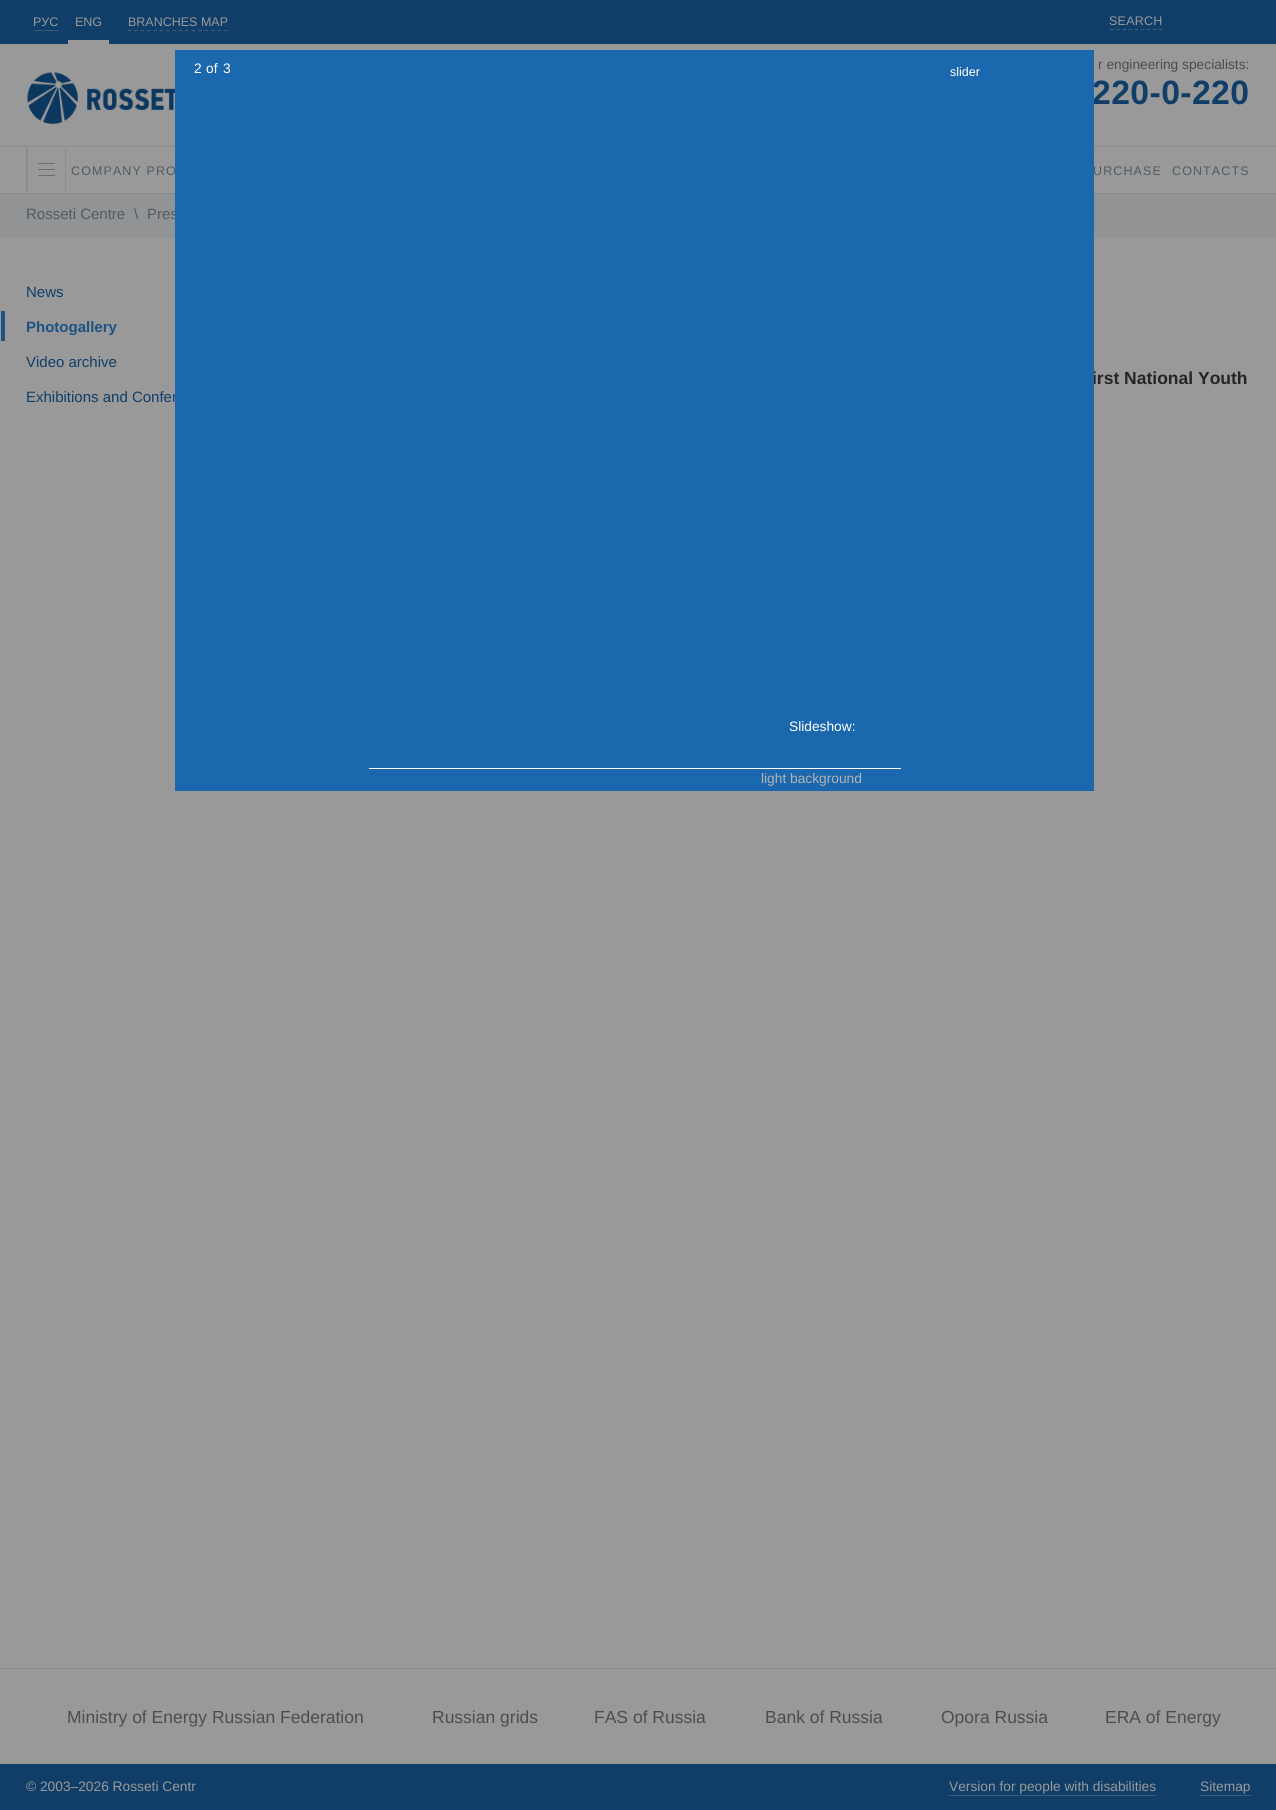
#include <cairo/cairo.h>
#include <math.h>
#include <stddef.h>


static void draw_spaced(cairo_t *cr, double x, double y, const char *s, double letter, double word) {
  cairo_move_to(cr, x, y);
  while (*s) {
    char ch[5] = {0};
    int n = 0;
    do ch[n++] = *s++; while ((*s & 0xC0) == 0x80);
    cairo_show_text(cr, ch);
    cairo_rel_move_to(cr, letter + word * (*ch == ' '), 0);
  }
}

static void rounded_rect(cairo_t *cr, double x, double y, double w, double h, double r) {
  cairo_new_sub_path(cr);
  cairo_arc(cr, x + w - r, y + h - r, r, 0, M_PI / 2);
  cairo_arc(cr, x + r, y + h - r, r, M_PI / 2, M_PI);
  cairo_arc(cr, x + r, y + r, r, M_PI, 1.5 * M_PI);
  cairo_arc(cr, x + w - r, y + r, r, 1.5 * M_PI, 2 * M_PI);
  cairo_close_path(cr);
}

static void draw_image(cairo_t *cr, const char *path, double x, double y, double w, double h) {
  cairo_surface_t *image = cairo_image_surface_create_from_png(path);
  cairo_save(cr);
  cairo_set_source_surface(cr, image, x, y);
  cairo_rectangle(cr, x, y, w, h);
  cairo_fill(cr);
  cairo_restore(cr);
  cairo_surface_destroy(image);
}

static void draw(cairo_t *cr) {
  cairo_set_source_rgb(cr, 153 / 255.0, 153 / 255.0, 153 / 255.0);
  cairo_paint(cr);
  cairo_set_source_rgb(cr, 16 / 255.0, 62 / 255.0, 104 / 255.0);
  cairo_rectangle(cr, 0, 0, 1276, 44);
  cairo_fill(cr);
  cairo_set_source_rgb(cr, 57 / 255.0, 89 / 255.0, 119 / 255.0);
  cairo_rectangle(cr, 34, 30, 25, 1);
  cairo_fill(cr);
  cairo_set_source_rgb(cr, 153 / 255.0, 153 / 255.0, 153 / 255.0);
  cairo_rectangle(cr, 68, 40, 41, 4);
  cairo_fill(cr);
  cairo_new_path(cr);
  cairo_move_to(cr, 127.5, 30.5);
  cairo_line_to(cr, 227.5, 30.5);
  cairo_set_source_rgb(cr, 57 / 255.0, 89 / 255.0, 119 / 255.0);
  cairo_set_line_width(cr, 1.2);
  cairo_set_dash(cr, (double[]){3.75, 2.66}, 2, 0);
  cairo_stroke(cr);
  cairo_new_path(cr);
  cairo_move_to(cr, 1110, 29.5);
  cairo_line_to(cr, 1162.5, 29.5);
  cairo_set_dash(cr, (double[]){3.75, 2.35}, 2, 0);
  cairo_stroke(cr);
  cairo_set_source_rgb(cr, 140 / 255.0, 140 / 255.0, 140 / 255.0);
  cairo_rectangle(cr, 0, 146, 1276, 1);
  cairo_fill(cr);
  draw_image(cr, "images/1.png", 27, 72, 148, 52);
  cairo_rectangle(cr, 0, 193, 1276, 1);
  cairo_fill(cr);
  cairo_new_path(cr);
  cairo_move_to(cr, 66, 148);
  cairo_line_to(cr, 66, 192);
  cairo_line_to(cr, 65, 192);
  cairo_line_to(cr, 65, 149);
  cairo_close_path(cr);
  cairo_move_to(cr, 26, 192);
  cairo_line_to(cr, 26, 148);
  cairo_line_to(cr, 28, 149);
  cairo_line_to(cr, 28, 192);
  cairo_close_path(cr);
  cairo_fill(cr);
  cairo_set_source_rgb(cr, 106 / 255.0, 110 / 255.0, 113 / 255.0);
  rounded_rect(cr, 38, 169, 17, 1, 0.5);
  cairo_fill(cr);
  rounded_rect(cr, 38, 163, 17, 1, 0.5);
  cairo_fill(cr);
  rounded_rect(cr, 38, 175, 17, 1, 0.5);
  cairo_fill(cr);
  cairo_set_source_rgb(cr, 145 / 255.0, 147 / 255.0, 148 / 255.0);
  cairo_rectangle(cr, 0, 194, 1276, 44);
  cairo_fill(cr);
  cairo_set_source_rgb(cr, 29 / 255.0, 82 / 255.0, 131 / 255.0);
  cairo_rectangle(cr, 1, 311, 4, 30);
  cairo_fill(cr);
  cairo_set_source_rgb(cr, 140 / 255.0, 140 / 255.0, 140 / 255.0);
  cairo_rectangle(cr, 0, 1668, 1276, 1);
  cairo_fill(cr);
  cairo_set_source_rgb(cr, 16 / 255.0, 62 / 255.0, 104 / 255.0);
  cairo_rectangle(cr, 0, 1764, 1276, 46);
  cairo_fill(cr);
  cairo_set_source_rgb(cr, 58 / 255.0, 90 / 255.0, 119 / 255.0);
  cairo_rectangle(cr, 949, 1795, 207, 1);
  cairo_fill(cr);
  cairo_rectangle(cr, 1200, 1795, 51, 1);
  cairo_fill(cr);
  cairo_select_font_face(cr, "Liberation Sans", CAIRO_FONT_SLANT_NORMAL, CAIRO_FONT_WEIGHT_NORMAL);
  cairo_set_font_size(cr, 12.5);
  cairo_set_source_rgb(cr, 153 / 255.0, 153 / 255.0, 153 / 255.0);
  cairo_move_to(cr, 33, 26);
  cairo_show_text(cr, "РУС");
  cairo_move_to(cr, 75, 26);
  cairo_show_text(cr, "ENG");
  cairo_move_to(cr, 128, 26);
  cairo_show_text(cr, "BRANCHES MAP");
  draw_spaced(cr, 1109, 25, "SEARCH", 0.25, 0);
  cairo_set_font_size(cr, 13.75);
  cairo_set_source_rgb(cr, 77 / 255.0, 76 / 255.0, 79 / 255.0);
  cairo_move_to(cr, 1098, 69);
  cairo_show_text(cr, "r engineering specialists:");
  cairo_select_font_face(cr, "Liberation Sans", CAIRO_FONT_SLANT_NORMAL, CAIRO_FONT_WEIGHT_BOLD);
  cairo_set_font_size(cr, 33.75);
  cairo_set_source_rgb(cr, 16 / 255.0, 62 / 255.0, 104 / 255.0);
  draw_spaced(cr, 1092, 104, "220-0-220", 0.4, 0);
  cairo_select_font_face(cr, "Liberation Sans", CAIRO_FONT_SLANT_NORMAL, CAIRO_FONT_WEIGHT_NORMAL);
  cairo_set_font_size(cr, 12.5);
  cairo_set_source_rgb(cr, 79 / 255.0, 92 / 255.0, 100 / 255.0);
  draw_spaced(cr, 71, 175, "COMPANY PRO", 1.1, 0);
  draw_spaced(cr, 1093, 175, "URCHASE", 1.1, 0);
  draw_spaced(cr, 1172, 175, "CONTACTS", 1.1, 0);
  cairo_set_font_size(cr, 15);
  cairo_move_to(cr, 26, 219);
  cairo_show_text(cr, "Rosseti Centre");
  cairo_move_to(cr, 134, 219);
  cairo_show_text(cr, "\\");
  cairo_move_to(cr, 147, 219);
  cairo_show_text(cr, "Pres");
  cairo_set_source_rgb(cr, 16 / 255.0, 62 / 255.0, 104 / 255.0);
  cairo_move_to(cr, 26, 297);
  cairo_show_text(cr, "News");
  cairo_select_font_face(cr, "Liberation Sans", CAIRO_FONT_SLANT_NORMAL, CAIRO_FONT_WEIGHT_BOLD);
  cairo_set_source_rgb(cr, 29 / 255.0, 82 / 255.0, 131 / 255.0);
  cairo_move_to(cr, 26, 332);
  cairo_show_text(cr, "Photogallery");
  cairo_select_font_face(cr, "Liberation Sans", CAIRO_FONT_SLANT_NORMAL, CAIRO_FONT_WEIGHT_NORMAL);
  cairo_set_source_rgb(cr, 16 / 255.0, 62 / 255.0, 104 / 255.0);
  cairo_move_to(cr, 26, 367);
  cairo_show_text(cr, "Video archive");
  cairo_move_to(cr, 26, 402);
  cairo_show_text(cr, "Exhibitions and Confer");
  cairo_select_font_face(cr, "Liberation Sans", CAIRO_FONT_SLANT_NORMAL, CAIRO_FONT_WEIGHT_BOLD);
  cairo_set_font_size(cr, 17.5);
  cairo_set_source_rgb(cr, 36 / 255.0, 37 / 255.0, 38 / 255.0);
  cairo_move_to(cr, 1092, 384);
  cairo_show_text(cr, "irst National Youth");
  cairo_set_source_rgb(cr, 27 / 255.0, 104 / 255.0, 174 / 255.0);
  cairo_rectangle(cr, 175, 50, 919, 741);
  cairo_fill(cr);
  cairo_select_font_face(cr, "Liberation Sans", CAIRO_FONT_SLANT_NORMAL, CAIRO_FONT_WEIGHT_NORMAL);
  cairo_set_font_size(cr, 13.75);
  cairo_set_source_rgb(cr, 179 / 255.0, 179 / 255.0, 179 / 255.0);
  cairo_move_to(cr, 761, 783);
  cairo_show_text(cr, "light background");
  cairo_set_source_rgb(cr, 1, 1, 1);
  cairo_move_to(cr, 789, 731);
  cairo_show_text(cr, "Slideshow:");
  cairo_rectangle(cr, 369, 768, 532, 1);
  cairo_fill(cr);
  cairo_set_font_size(cr, 12.5);
  cairo_move_to(cr, 950, 76);
  cairo_show_text(cr, "slider");
  cairo_set_font_size(cr, 13.75);
  cairo_move_to(cr, 223, 73);
  cairo_show_text(cr, "3");
  cairo_move_to(cr, 206, 73);
  cairo_show_text(cr, "of");
  cairo_move_to(cr, 194, 73);
  cairo_show_text(cr, "2");
  cairo_set_font_size(cr, 17.5);
  cairo_set_source_rgb(cr, 77 / 255.0, 76 / 255.0, 79 / 255.0);
  cairo_move_to(cr, 67, 1723);
  cairo_show_text(cr, "Ministry of Energy Russian Federation");
  cairo_move_to(cr, 432, 1723);
  cairo_show_text(cr, "Russian grids");
  cairo_move_to(cr, 594, 1723);
  cairo_show_text(cr, "FAS of Russia");
  cairo_move_to(cr, 765, 1723);
  cairo_show_text(cr, "Bank of Russia");
  cairo_move_to(cr, 941, 1723);
  cairo_show_text(cr, "Opora Russia");
  cairo_move_to(cr, 1105, 1723);
  cairo_show_text(cr, "ERA of Energy");
  cairo_set_font_size(cr, 13.75);
  cairo_set_source_rgb(cr, 153 / 255.0, 153 / 255.0, 153 / 255.0);
  cairo_move_to(cr, 26, 1791);
  cairo_show_text(cr, "© 2003–2026 Rosseti Centr");
  cairo_move_to(cr, 949, 1791);
  cairo_show_text(cr, "Version for people with disabilities");
  cairo_move_to(cr, 1200, 1791);
  cairo_show_text(cr, "Sitemap");
}

int main(void) {
  cairo_surface_t *surface = cairo_image_surface_create(CAIRO_FORMAT_RGB24, 1276, 1810);
  cairo_t *cr = cairo_create(surface);
  cairo_font_options_t *options = cairo_font_options_create();
  cairo_font_options_set_hint_metrics(options, CAIRO_HINT_METRICS_OFF);
  cairo_font_options_set_hint_style(options, CAIRO_HINT_STYLE_NONE);
  cairo_set_font_options(cr, options);
  cairo_set_miter_limit(cr, 4);
  draw(cr);
  cairo_surface_write_to_png(surface, "out.png");
  cairo_font_options_destroy(options);
  cairo_destroy(cr);
  cairo_surface_destroy(surface);
  return 0;
}
